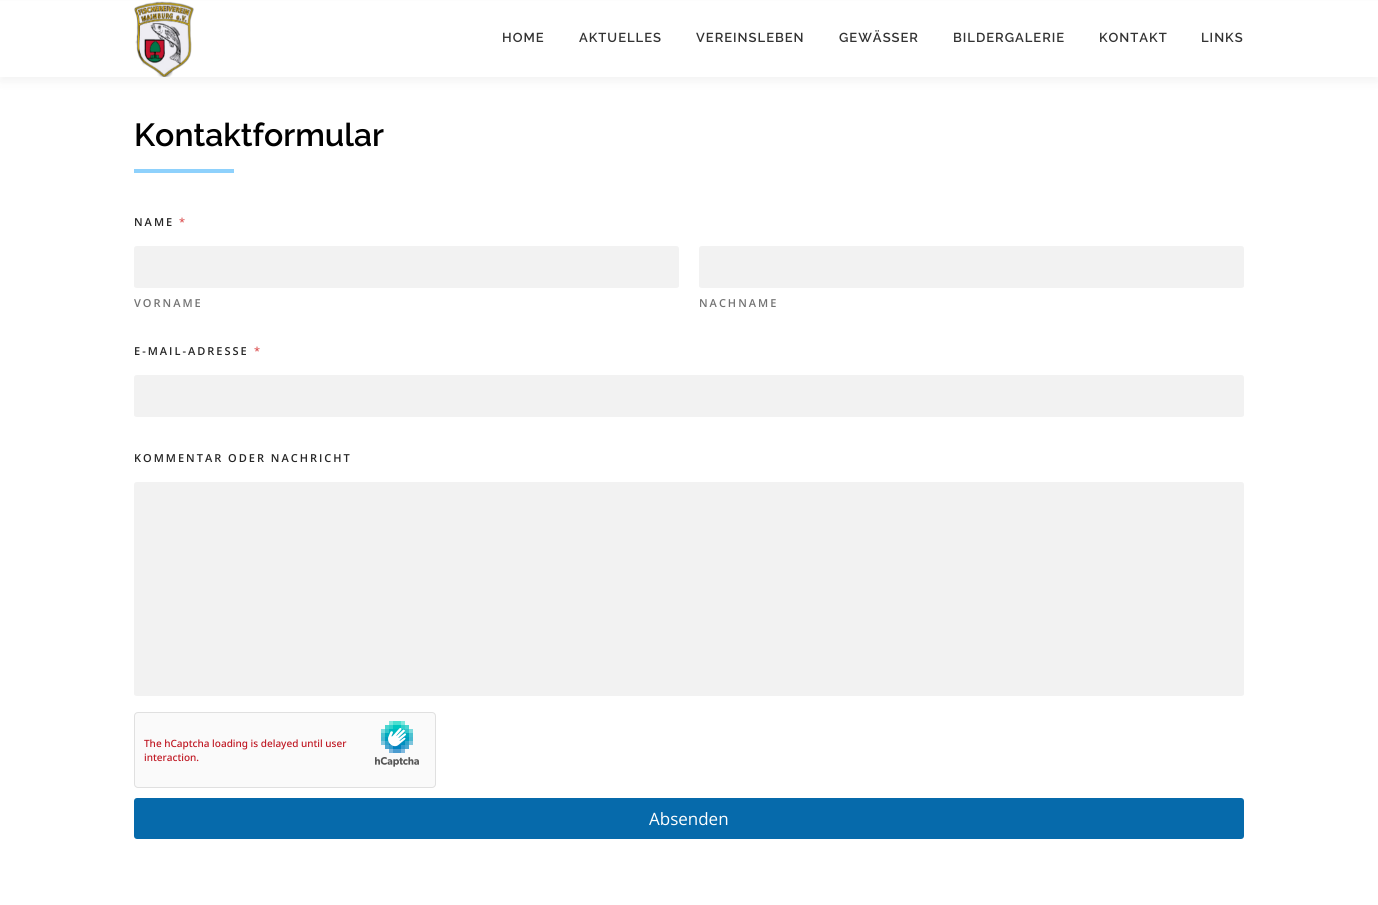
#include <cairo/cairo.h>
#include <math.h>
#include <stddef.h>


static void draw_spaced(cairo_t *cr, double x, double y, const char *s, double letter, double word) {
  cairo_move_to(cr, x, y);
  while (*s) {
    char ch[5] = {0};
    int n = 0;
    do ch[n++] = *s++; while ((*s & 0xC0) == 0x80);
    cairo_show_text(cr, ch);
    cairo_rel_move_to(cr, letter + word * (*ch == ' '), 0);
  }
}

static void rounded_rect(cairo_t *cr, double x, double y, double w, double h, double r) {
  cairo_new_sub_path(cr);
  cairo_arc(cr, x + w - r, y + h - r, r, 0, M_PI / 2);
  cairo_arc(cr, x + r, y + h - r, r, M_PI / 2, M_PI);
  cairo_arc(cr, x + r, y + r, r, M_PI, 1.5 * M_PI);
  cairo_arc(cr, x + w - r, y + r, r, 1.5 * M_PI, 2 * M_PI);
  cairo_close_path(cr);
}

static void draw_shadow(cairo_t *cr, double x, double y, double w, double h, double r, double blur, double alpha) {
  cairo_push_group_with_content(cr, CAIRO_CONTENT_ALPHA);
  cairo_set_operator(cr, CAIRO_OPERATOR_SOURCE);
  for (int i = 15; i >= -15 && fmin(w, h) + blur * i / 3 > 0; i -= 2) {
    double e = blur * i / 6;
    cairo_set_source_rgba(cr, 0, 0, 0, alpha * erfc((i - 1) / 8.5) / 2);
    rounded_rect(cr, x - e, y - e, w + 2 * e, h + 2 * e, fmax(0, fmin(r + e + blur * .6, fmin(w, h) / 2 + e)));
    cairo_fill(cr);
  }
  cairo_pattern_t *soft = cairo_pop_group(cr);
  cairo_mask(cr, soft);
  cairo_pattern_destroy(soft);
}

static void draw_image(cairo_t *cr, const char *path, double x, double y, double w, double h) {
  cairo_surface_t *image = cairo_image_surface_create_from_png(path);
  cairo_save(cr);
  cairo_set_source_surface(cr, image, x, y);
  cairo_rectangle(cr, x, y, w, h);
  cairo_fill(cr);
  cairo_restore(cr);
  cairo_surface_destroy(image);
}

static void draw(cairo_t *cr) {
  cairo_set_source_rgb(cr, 1, 1, 1);
  cairo_paint(cr);
  cairo_set_source_rgb(cr, 50 / 255.0, 50 / 255.0, 50 / 255.0);
  draw_shadow(cr, 0, 5, 1378, 77, 0, 5, 0.06);
  cairo_set_source_rgb(cr, 1, 1, 1);
  cairo_rectangle(cr, 0, 1, 1378, 76);
  cairo_fill(cr);
  draw_image(cr, "images/1.png", 134, 1, 60, 76);
  cairo_set_source_rgb(cr, 142 / 255.0, 209 / 255.0, 252 / 255.0);
  cairo_rectangle(cr, 134, 169, 100, 4);
  cairo_fill(cr);
  cairo_set_source_rgb(cr, 242 / 255.0, 242 / 255.0, 242 / 255.0);
  cairo_new_path(cr);
  cairo_move_to(cr, 137, 246);
  cairo_line_to(cr, 676, 246);
  cairo_curve_to(cr, 678, 246, 679, 247, 679, 249);
  cairo_line_to(cr, 679, 286);
  cairo_curve_to(cr, 679, 287, 678, 288, 676, 288);
  cairo_line_to(cr, 137, 288);
  cairo_curve_to(cr, 135, 288, 134, 287, 134, 286);
  cairo_line_to(cr, 134, 249);
  cairo_curve_to(cr, 134, 247, 135, 246, 137, 246);
  cairo_close_path(cr);
  cairo_fill(cr);
  cairo_new_path(cr);
  cairo_move_to(cr, 702, 246);
  cairo_line_to(cr, 1241, 246);
  cairo_curve_to(cr, 1243, 246, 1244, 247, 1244, 249);
  cairo_line_to(cr, 1244, 286);
  cairo_curve_to(cr, 1244, 287, 1243, 288, 1241, 288);
  cairo_line_to(cr, 702, 288);
  cairo_curve_to(cr, 700, 288, 699, 287, 699, 286);
  cairo_line_to(cr, 699, 249);
  cairo_curve_to(cr, 699, 247, 700, 246, 702, 246);
  cairo_close_path(cr);
  cairo_fill(cr);
  cairo_new_path(cr);
  cairo_move_to(cr, 137, 375);
  cairo_line_to(cr, 1241, 375);
  cairo_curve_to(cr, 1243, 375, 1244, 376, 1244, 378);
  cairo_line_to(cr, 1244, 415);
  cairo_curve_to(cr, 1244, 416, 1243, 417, 1241, 417);
  cairo_line_to(cr, 137, 417);
  cairo_curve_to(cr, 135, 417, 134, 416, 134, 415);
  cairo_line_to(cr, 134, 378);
  cairo_curve_to(cr, 134, 376, 135, 375, 137, 375);
  cairo_close_path(cr);
  cairo_fill(cr);
  cairo_new_path(cr);
  cairo_move_to(cr, 137, 482);
  cairo_line_to(cr, 1241, 482);
  cairo_curve_to(cr, 1243, 482, 1244, 483, 1244, 485);
  cairo_line_to(cr, 1244, 694);
  cairo_curve_to(cr, 1244, 695, 1243, 696, 1241, 696);
  cairo_line_to(cr, 137, 696);
  cairo_curve_to(cr, 135, 696, 134, 695, 134, 694);
  cairo_line_to(cr, 134, 485);
  cairo_curve_to(cr, 134, 483, 135, 482, 137, 482);
  cairo_close_path(cr);
  cairo_fill(cr);
  cairo_set_source_rgb(cr, 250 / 255.0, 250 / 255.0, 250 / 255.0);
  rounded_rect(cr, 134, 712, 302, 76, 4);
  cairo_fill(cr);
  draw_image(cr, "images/2.png", 375, 721, 44, 46);
  rounded_rect(cr, 134.5, 712.5, 301, 75, 3.5);
  cairo_set_source_rgb(cr, 224 / 255.0, 224 / 255.0, 224 / 255.0);
  cairo_set_line_width(cr, 1);
  cairo_stroke(cr);
  cairo_set_source_rgb(cr, 6 / 255.0, 106 / 255.0, 171 / 255.0);
  rounded_rect(cr, 134, 798, 1110, 41, 3);
  cairo_fill(cr);
  cairo_select_font_face(cr, "Raleway SemiBold", CAIRO_FONT_SLANT_NORMAL, CAIRO_FONT_WEIGHT_NORMAL);
  cairo_set_font_size(cr, 13);
  cairo_set_source_rgb(cr, 51 / 255.0, 51 / 255.0, 51 / 255.0);
  draw_spaced(cr, 502, 42, "HOME", 1, 0);
  draw_spaced(cr, 579, 42, "AKTUELLES", 1, 0);
  draw_spaced(cr, 696, 42, "VEREINSLEBEN", 1, 0);
  draw_spaced(cr, 839, 42, "GEWÄSSER", 1, 0);
  draw_spaced(cr, 953, 42, "BILDERGALERIE", 1, 0);
  draw_spaced(cr, 1099, 42, "KONTAKT", 1, 0);
  draw_spaced(cr, 1201, 42, "LINKS", 1, 0);
  cairo_set_font_size(cr, 32);
  cairo_set_source_rgb(cr, 0, 0, 0);
  cairo_move_to(cr, 134, 146);
  cairo_show_text(cr, "Kontaktformular");
  cairo_select_font_face(cr, "Open Sans SemiBold", CAIRO_FONT_SLANT_NORMAL, CAIRO_FONT_WEIGHT_NORMAL);
  cairo_set_font_size(cr, 11);
  cairo_set_source_rgb(cr, 38 / 255.0, 38 / 255.0, 38 / 255.0);
  draw_spaced(cr, 134, 226, "NAME", 2, 0);
  cairo_select_font_face(cr, "Open Sans", CAIRO_FONT_SLANT_NORMAL, CAIRO_FONT_WEIGHT_NORMAL);
  cairo_set_source_rgb(cr, 214 / 255.0, 54 / 255.0, 55 / 255.0);
  cairo_move_to(cr, 179, 226);
  cairo_show_text(cr, "*");
  cairo_select_font_face(cr, "Open Sans SemiBold", CAIRO_FONT_SLANT_NORMAL, CAIRO_FONT_WEIGHT_NORMAL);
  cairo_set_source_rgb(cr, 115 / 255.0, 115 / 255.0, 115 / 255.0);
  draw_spaced(cr, 134, 307, "VORNAME", 2, 0);
  draw_spaced(cr, 699, 307, "NACHNAME", 2, 0);
  cairo_set_source_rgb(cr, 38 / 255.0, 38 / 255.0, 38 / 255.0);
  draw_spaced(cr, 134, 355, "E-MAIL-ADRESSE", 2, 0);
  cairo_select_font_face(cr, "Open Sans", CAIRO_FONT_SLANT_NORMAL, CAIRO_FONT_WEIGHT_NORMAL);
  cairo_set_source_rgb(cr, 214 / 255.0, 54 / 255.0, 55 / 255.0);
  cairo_move_to(cr, 254, 355);
  cairo_show_text(cr, "*");
  cairo_select_font_face(cr, "Open Sans SemiBold", CAIRO_FONT_SLANT_NORMAL, CAIRO_FONT_WEIGHT_NORMAL);
  cairo_set_source_rgb(cr, 38 / 255.0, 38 / 255.0, 38 / 255.0);
  draw_spaced(cr, 134, 462, "KOMMENTAR ODER NACHRICHT", 2, 0);
  cairo_select_font_face(cr, "Noto Sans Medium", CAIRO_FONT_SLANT_NORMAL, CAIRO_FONT_WEIGHT_NORMAL);
  cairo_set_font_size(cr, 10);
  cairo_set_source_rgb(cr, 191 / 255.0, 23 / 255.0, 34 / 255.0);
  cairo_move_to(cr, 144, 747);
  cairo_show_text(cr, "The hCaptcha loading is delayed until user");
  cairo_move_to(cr, 144, 761);
  cairo_show_text(cr, "interaction.");
  cairo_select_font_face(cr, "Open Sans", CAIRO_FONT_SLANT_NORMAL, CAIRO_FONT_WEIGHT_NORMAL);
  cairo_set_font_size(cr, 17);
  cairo_set_source_rgb(cr, 1, 1, 1);
  cairo_move_to(cr, 649, 825);
  cairo_show_text(cr, "Absenden");
}

int main(void) {
  cairo_surface_t *surface = cairo_image_surface_create(CAIRO_FORMAT_RGB24, 1378, 905);
  cairo_t *cr = cairo_create(surface);
  cairo_font_options_t *options = cairo_font_options_create();
  cairo_font_options_set_hint_metrics(options, CAIRO_HINT_METRICS_OFF);
  cairo_font_options_set_hint_style(options, CAIRO_HINT_STYLE_NONE);
  cairo_set_font_options(cr, options);
  cairo_set_miter_limit(cr, 4);
  draw(cr);
  cairo_surface_write_to_png(surface, "out.png");
  cairo_font_options_destroy(options);
  cairo_destroy(cr);
  cairo_surface_destroy(surface);
  return 0;
}
